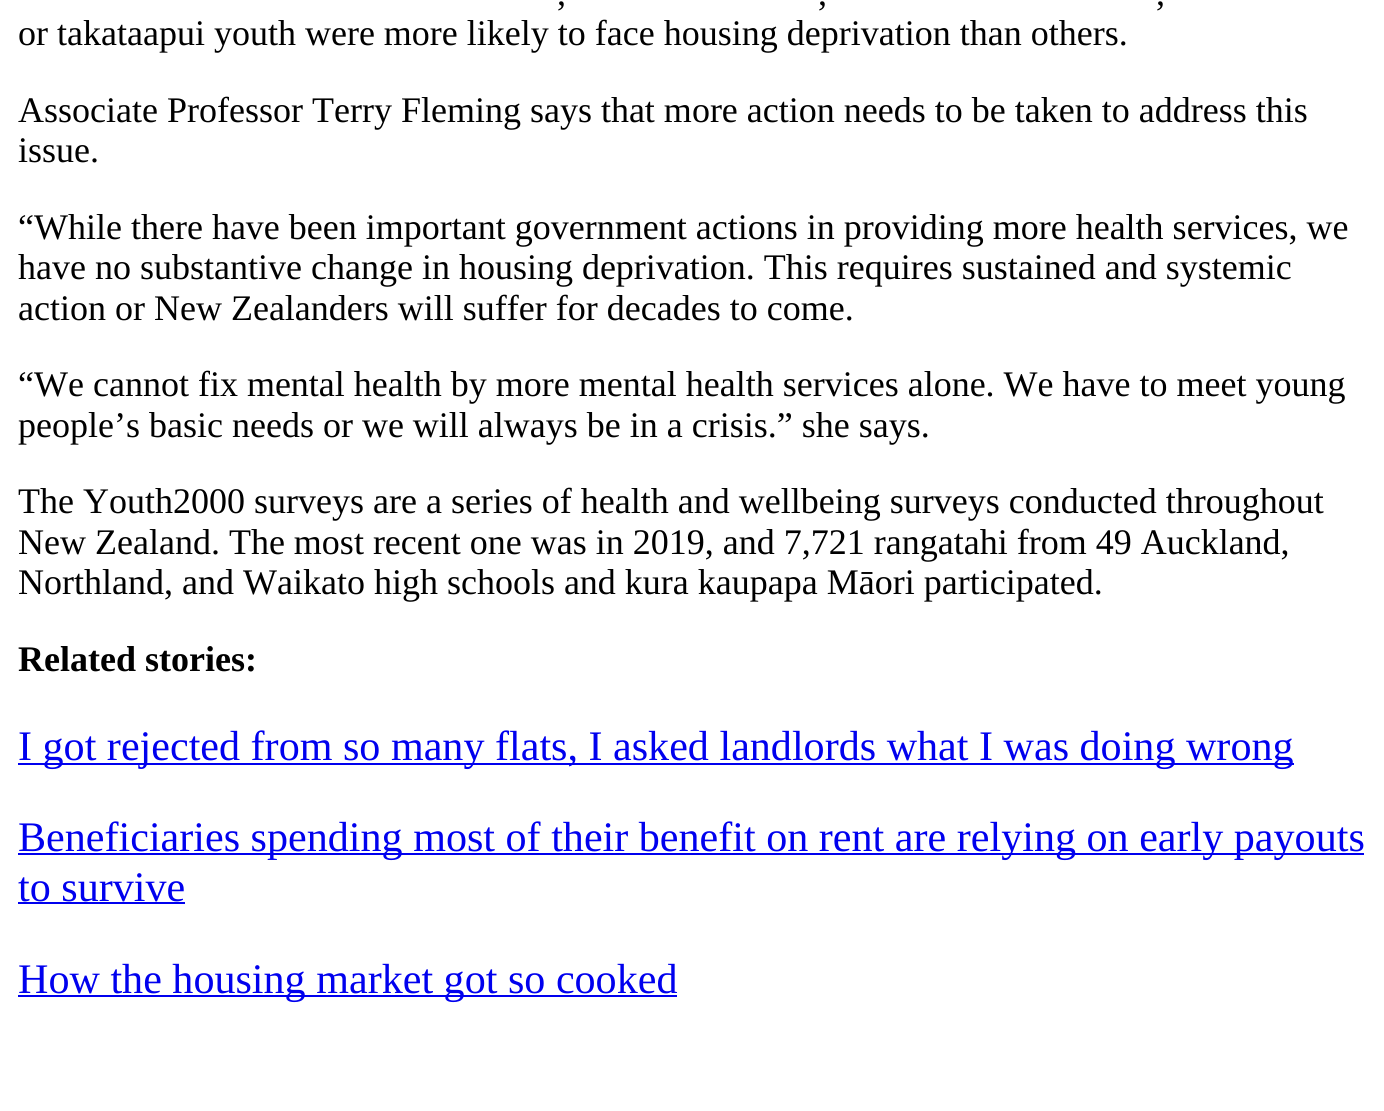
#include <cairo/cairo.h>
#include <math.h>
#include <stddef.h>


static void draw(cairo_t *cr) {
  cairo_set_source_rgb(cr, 1, 1, 1);
  cairo_paint(cr);
  cairo_set_source_rgb(cr, 0, 0, 238 / 255.0);
  cairo_rectangle(cr, 18, 763, 1276, 2);
  cairo_fill(cr);
  cairo_rectangle(cr, 18, 853, 1346, 2);
  cairo_fill(cr);
  cairo_rectangle(cr, 18, 902, 167, 2);
  cairo_fill(cr);
  cairo_rectangle(cr, 18, 995, 659, 2);
  cairo_fill(cr);
  cairo_select_font_face(cr, "Liberation Serif", CAIRO_FONT_SLANT_NORMAL, CAIRO_FONT_WEIGHT_NORMAL);
  cairo_set_font_size(cr, 36);
  cairo_set_source_rgb(cr, 0, 0, 0);
  cairo_move_to(cr, 557, 5);
  cairo_show_text(cr, ",");
  cairo_move_to(cr, 818, 5);
  cairo_show_text(cr, ",");
  cairo_move_to(cr, 1156, 5);
  cairo_show_text(cr, ",");
  cairo_move_to(cr, 18, 45);
  cairo_show_text(cr, "or takataapui youth were more likely to face housing deprivation than others.");
  cairo_move_to(cr, 18, 122);
  cairo_show_text(cr, "Associate Professor Terry Fleming says that more action needs to be taken to address this");
  cairo_move_to(cr, 18, 162);
  cairo_show_text(cr, "issue.");
  cairo_move_to(cr, 18, 239);
  cairo_show_text(cr, "“While there have been important government actions in providing more health services, we");
  cairo_move_to(cr, 18, 279);
  cairo_show_text(cr, "have no substantive change in housing deprivation. This requires sustained and systemic");
  cairo_move_to(cr, 18, 320);
  cairo_show_text(cr, "action or New Zealanders will suffer for decades to come.");
  cairo_move_to(cr, 18, 396);
  cairo_show_text(cr, "“We cannot fix mental health by more mental health services alone. We have to meet young");
  cairo_move_to(cr, 18, 437);
  cairo_show_text(cr, "people’s basic needs or we will always be in a crisis.” she says.");
  cairo_move_to(cr, 18, 513);
  cairo_show_text(cr, "The Youth2000 surveys are a series of health and wellbeing surveys conducted throughout");
  cairo_move_to(cr, 18, 554);
  cairo_show_text(cr, "New Zealand. The most recent one was in 2019, and 7,721 rangatahi from 49 Auckland,");
  cairo_move_to(cr, 18, 594);
  cairo_show_text(cr, "Northland, and Waikato high schools and kura kaupapa Māori participated.");
  cairo_select_font_face(cr, "Liberation Serif", CAIRO_FONT_SLANT_NORMAL, CAIRO_FONT_WEIGHT_BOLD);
  cairo_move_to(cr, 18, 671);
  cairo_show_text(cr, "Related stories:");
  cairo_select_font_face(cr, "Liberation Serif", CAIRO_FONT_SLANT_NORMAL, CAIRO_FONT_WEIGHT_NORMAL);
  cairo_set_font_size(cr, 42.1);
  cairo_set_source_rgb(cr, 0, 0, 238 / 255.0);
  cairo_move_to(cr, 18, 760);
  cairo_show_text(cr, "I got rejected from so many flats, I asked landlords what I was doing wrong");
  cairo_move_to(cr, 18, 851);
  cairo_show_text(cr, "Beneficiaries spending most of their benefit on rent are relying on early payouts");
  cairo_move_to(cr, 18, 901);
  cairo_show_text(cr, "to survive");
  cairo_move_to(cr, 18, 993);
  cairo_show_text(cr, "How the housing market got so cooked");
}

int main(void) {
  cairo_surface_t *surface = cairo_image_surface_create(CAIRO_FORMAT_RGB24, 1384, 1111);
  cairo_t *cr = cairo_create(surface);
  cairo_font_options_t *options = cairo_font_options_create();
  cairo_font_options_set_hint_metrics(options, CAIRO_HINT_METRICS_OFF);
  cairo_font_options_set_hint_style(options, CAIRO_HINT_STYLE_NONE);
  cairo_set_font_options(cr, options);
  cairo_set_miter_limit(cr, 4);
  draw(cr);
  cairo_surface_write_to_png(surface, "out.png");
  cairo_font_options_destroy(options);
  cairo_destroy(cr);
  cairo_surface_destroy(surface);
  return 0;
}
